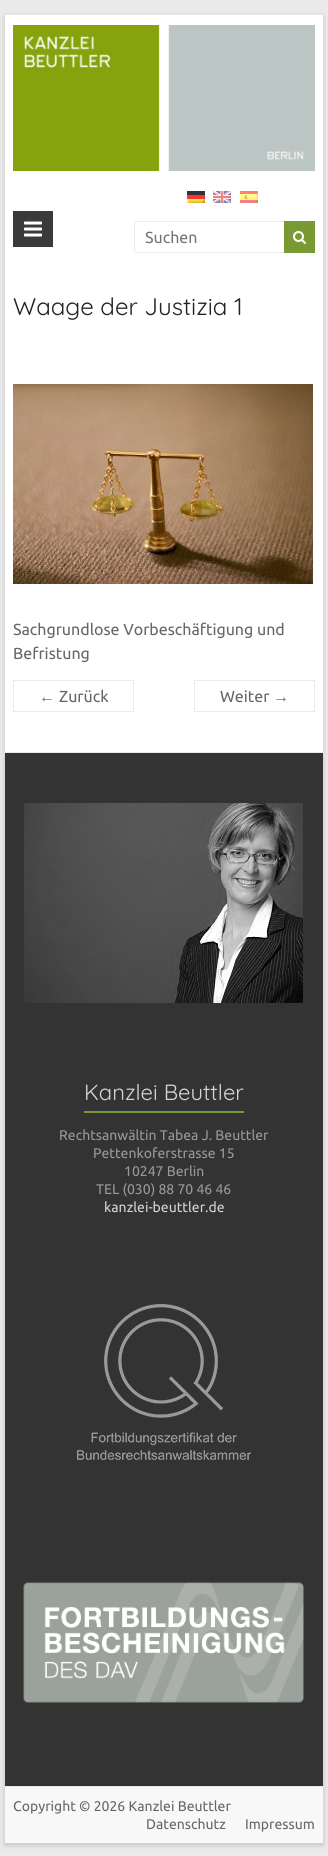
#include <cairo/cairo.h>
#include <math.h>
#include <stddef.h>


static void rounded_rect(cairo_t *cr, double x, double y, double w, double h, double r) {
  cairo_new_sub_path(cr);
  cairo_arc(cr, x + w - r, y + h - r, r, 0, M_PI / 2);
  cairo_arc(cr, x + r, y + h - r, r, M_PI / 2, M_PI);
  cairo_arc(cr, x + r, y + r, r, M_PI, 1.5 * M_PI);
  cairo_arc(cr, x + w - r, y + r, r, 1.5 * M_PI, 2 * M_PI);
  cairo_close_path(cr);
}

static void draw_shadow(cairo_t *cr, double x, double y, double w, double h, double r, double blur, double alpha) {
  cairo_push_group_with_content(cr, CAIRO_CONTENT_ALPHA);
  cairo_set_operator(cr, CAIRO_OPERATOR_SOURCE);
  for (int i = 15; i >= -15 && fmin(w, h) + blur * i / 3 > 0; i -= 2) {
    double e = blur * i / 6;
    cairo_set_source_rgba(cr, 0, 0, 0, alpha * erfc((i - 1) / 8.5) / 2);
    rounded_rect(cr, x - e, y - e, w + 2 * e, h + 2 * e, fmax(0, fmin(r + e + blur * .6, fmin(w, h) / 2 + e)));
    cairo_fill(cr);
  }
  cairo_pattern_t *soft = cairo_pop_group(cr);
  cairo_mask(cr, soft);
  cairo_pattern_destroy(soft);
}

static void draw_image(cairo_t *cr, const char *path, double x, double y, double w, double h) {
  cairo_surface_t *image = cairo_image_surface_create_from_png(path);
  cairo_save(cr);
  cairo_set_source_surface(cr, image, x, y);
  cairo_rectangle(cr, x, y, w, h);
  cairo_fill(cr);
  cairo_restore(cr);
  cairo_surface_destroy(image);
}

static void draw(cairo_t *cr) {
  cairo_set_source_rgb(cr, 234 / 255.0, 234 / 255.0, 234 / 255.0);
  cairo_paint(cr);
  cairo_set_source_rgb(cr, 100 / 255.0, 100 / 255.0, 100 / 255.0);
  draw_shadow(cr, 5, 17, 318, 1828, 0, 3, 0.3);
  cairo_set_source_rgb(cr, 1, 1, 1);
  cairo_rectangle(cr, 5, 15, 318, 737);
  cairo_fill(cr);
  draw_image(cr, "images/1.png", 13, 25, 302, 146);
  cairo_set_source_rgb(cr, 58 / 255.0, 58 / 255.0, 58 / 255.0);
  cairo_rectangle(cr, 13, 211, 40, 36);
  cairo_fill(cr);
  draw_image(cr, "images/2.png", 24, 221, 18, 16);
  draw_image(cr, "images/3.png", 187, 191, 18, 12);
  draw_image(cr, "images/4.png", 213, 191, 18, 12);
  draw_image(cr, "images/5.png", 240, 191, 18, 12);
  rounded_rect(cr, 134.5, 221.5, 151, 31, 2.5);
  cairo_set_source_rgb(cr, 234 / 255.0, 234 / 255.0, 234 / 255.0);
  cairo_set_line_width(cr, 1);
  cairo_stroke(cr);
  cairo_set_source_rgb(cr, 121 / 255.0, 154 / 255.0, 50 / 255.0);
  cairo_rectangle(cr, 284, 221, 31, 32);
  cairo_fill(cr);
  draw_image(cr, "images/6.png", 293, 231, 13, 13);
  draw_image(cr, "images/7.png", 13, 384, 300, 200);
  cairo_rectangle(cr, 13.5, 680.5, 120, 31);
  cairo_set_source_rgb(cr, 234 / 255.0, 234 / 255.0, 234 / 255.0);
  cairo_stroke(cr);
  cairo_rectangle(cr, 194.5, 680.5, 120, 31);
  cairo_stroke(cr);
  cairo_set_source_rgb(cr, 51 / 255.0, 51 / 255.0, 51 / 255.0);
  cairo_rectangle(cr, 5, 753, 318, 1033);
  cairo_fill(cr);
  cairo_set_source_rgb(cr, 234 / 255.0, 234 / 255.0, 234 / 255.0);
  cairo_rectangle(cr, 5, 752, 318, 1);
  cairo_fill(cr);
  draw_image(cr, "images/8.png", 24, 803, 279, 200);
  cairo_set_source_rgb(cr, 121 / 255.0, 154 / 255.0, 50 / 255.0);
  cairo_rectangle(cr, 84, 1111, 160, 2);
  cairo_fill(cr);
  draw_image(cr, "images/9.png", 77, 1304, 174, 156);
  draw_image(cr, "images/10.png", 23, 1582, 281, 121);
  cairo_set_source_rgb(cr, 248 / 255.0, 248 / 255.0, 248 / 255.0);
  cairo_rectangle(cr, 5, 1787, 318, 56);
  cairo_fill(cr);
  cairo_set_source_rgb(cr, 234 / 255.0, 234 / 255.0, 234 / 255.0);
  cairo_rectangle(cr, 5, 1786, 318, 1);
  cairo_fill(cr);
  cairo_select_font_face(cr, "Ubuntu", CAIRO_FONT_SLANT_NORMAL, CAIRO_FONT_WEIGHT_NORMAL);
  cairo_set_font_size(cr, 16);
  cairo_set_source_rgb(cr, 117 / 255.0, 117 / 255.0, 117 / 255.0);
  cairo_move_to(cr, 145, 243);
  cairo_show_text(cr, "Suchen");
  cairo_select_font_face(cr, "Quicksand Light", CAIRO_FONT_SLANT_NORMAL, CAIRO_FONT_WEIGHT_NORMAL);
  cairo_set_font_size(cr, 24);
  cairo_set_source_rgb(cr, 34 / 255.0, 34 / 255.0, 34 / 255.0);
  cairo_move_to(cr, 13, 315);
  cairo_show_text(cr, "Waage der Justizia 1");
  cairo_select_font_face(cr, "Ubuntu", CAIRO_FONT_SLANT_NORMAL, CAIRO_FONT_WEIGHT_NORMAL);
  cairo_set_font_size(cr, 16);
  cairo_set_source_rgb(cr, 102 / 255.0, 102 / 255.0, 102 / 255.0);
  cairo_move_to(cr, 13, 635);
  cairo_show_text(cr, "Sachgrundlose Vorbeschäftigung und");
  cairo_move_to(cr, 13, 659);
  cairo_show_text(cr, "Befristung");
  cairo_select_font_face(cr, "Liberation Serif", CAIRO_FONT_SLANT_NORMAL, CAIRO_FONT_WEIGHT_NORMAL);
  cairo_move_to(cr, 39, 702);
  cairo_show_text(cr, "←");
  cairo_select_font_face(cr, "Ubuntu", CAIRO_FONT_SLANT_NORMAL, CAIRO_FONT_WEIGHT_NORMAL);
  cairo_move_to(cr, 59, 702);
  cairo_show_text(cr, "Zurück");
  cairo_move_to(cr, 220, 702);
  cairo_show_text(cr, "Weiter");
  cairo_select_font_face(cr, "Liberation Serif", CAIRO_FONT_SLANT_NORMAL, CAIRO_FONT_WEIGHT_NORMAL);
  cairo_move_to(cr, 273, 702);
  cairo_show_text(cr, "→");
  cairo_select_font_face(cr, "Quicksand Light", CAIRO_FONT_SLANT_NORMAL, CAIRO_FONT_WEIGHT_NORMAL);
  cairo_set_font_size(cr, 22);
  cairo_set_source_rgb(cr, 213 / 255.0, 213 / 255.0, 213 / 255.0);
  cairo_move_to(cr, 84, 1100);
  cairo_show_text(cr, "Kanzlei Beuttler");
  cairo_select_font_face(cr, "Ubuntu", CAIRO_FONT_SLANT_NORMAL, CAIRO_FONT_WEIGHT_NORMAL);
  cairo_set_font_size(cr, 14);
  cairo_set_source_rgb(cr, 153 / 255.0, 153 / 255.0, 153 / 255.0);
  cairo_move_to(cr, 59, 1140);
  cairo_show_text(cr, "Rechtsanwältin Tabea J. Beuttler");
  cairo_move_to(cr, 93, 1158);
  cairo_show_text(cr, "Pettenkoferstrasse 15");
  cairo_move_to(cr, 124, 1176);
  cairo_show_text(cr, "10247 Berlin");
  cairo_move_to(cr, 96, 1194);
  cairo_show_text(cr, "TEL (030) 88 70 46 46");
  cairo_set_source_rgb(cr, 213 / 255.0, 213 / 255.0, 213 / 255.0);
  cairo_move_to(cr, 104, 1212);
  cairo_show_text(cr, "kanzlei-beuttler.de");
  cairo_set_source_rgb(cr, 102 / 255.0, 102 / 255.0, 102 / 255.0);
  cairo_move_to(cr, 13, 1811);
  cairo_show_text(cr, "Copyright © 2026 Kanzlei Beuttler");
  cairo_move_to(cr, 146, 1829);
  cairo_show_text(cr, "Datenschutz");
  cairo_move_to(cr, 245, 1829);
  cairo_show_text(cr, "Impressum");
}

int main(void) {
  cairo_surface_t *surface = cairo_image_surface_create(CAIRO_FORMAT_RGB24, 328, 1856);
  cairo_t *cr = cairo_create(surface);
  cairo_font_options_t *options = cairo_font_options_create();
  cairo_font_options_set_hint_metrics(options, CAIRO_HINT_METRICS_OFF);
  cairo_font_options_set_hint_style(options, CAIRO_HINT_STYLE_NONE);
  cairo_set_font_options(cr, options);
  cairo_set_miter_limit(cr, 4);
  draw(cr);
  cairo_surface_write_to_png(surface, "out.png");
  cairo_font_options_destroy(options);
  cairo_destroy(cr);
  cairo_surface_destroy(surface);
  return 0;
}
